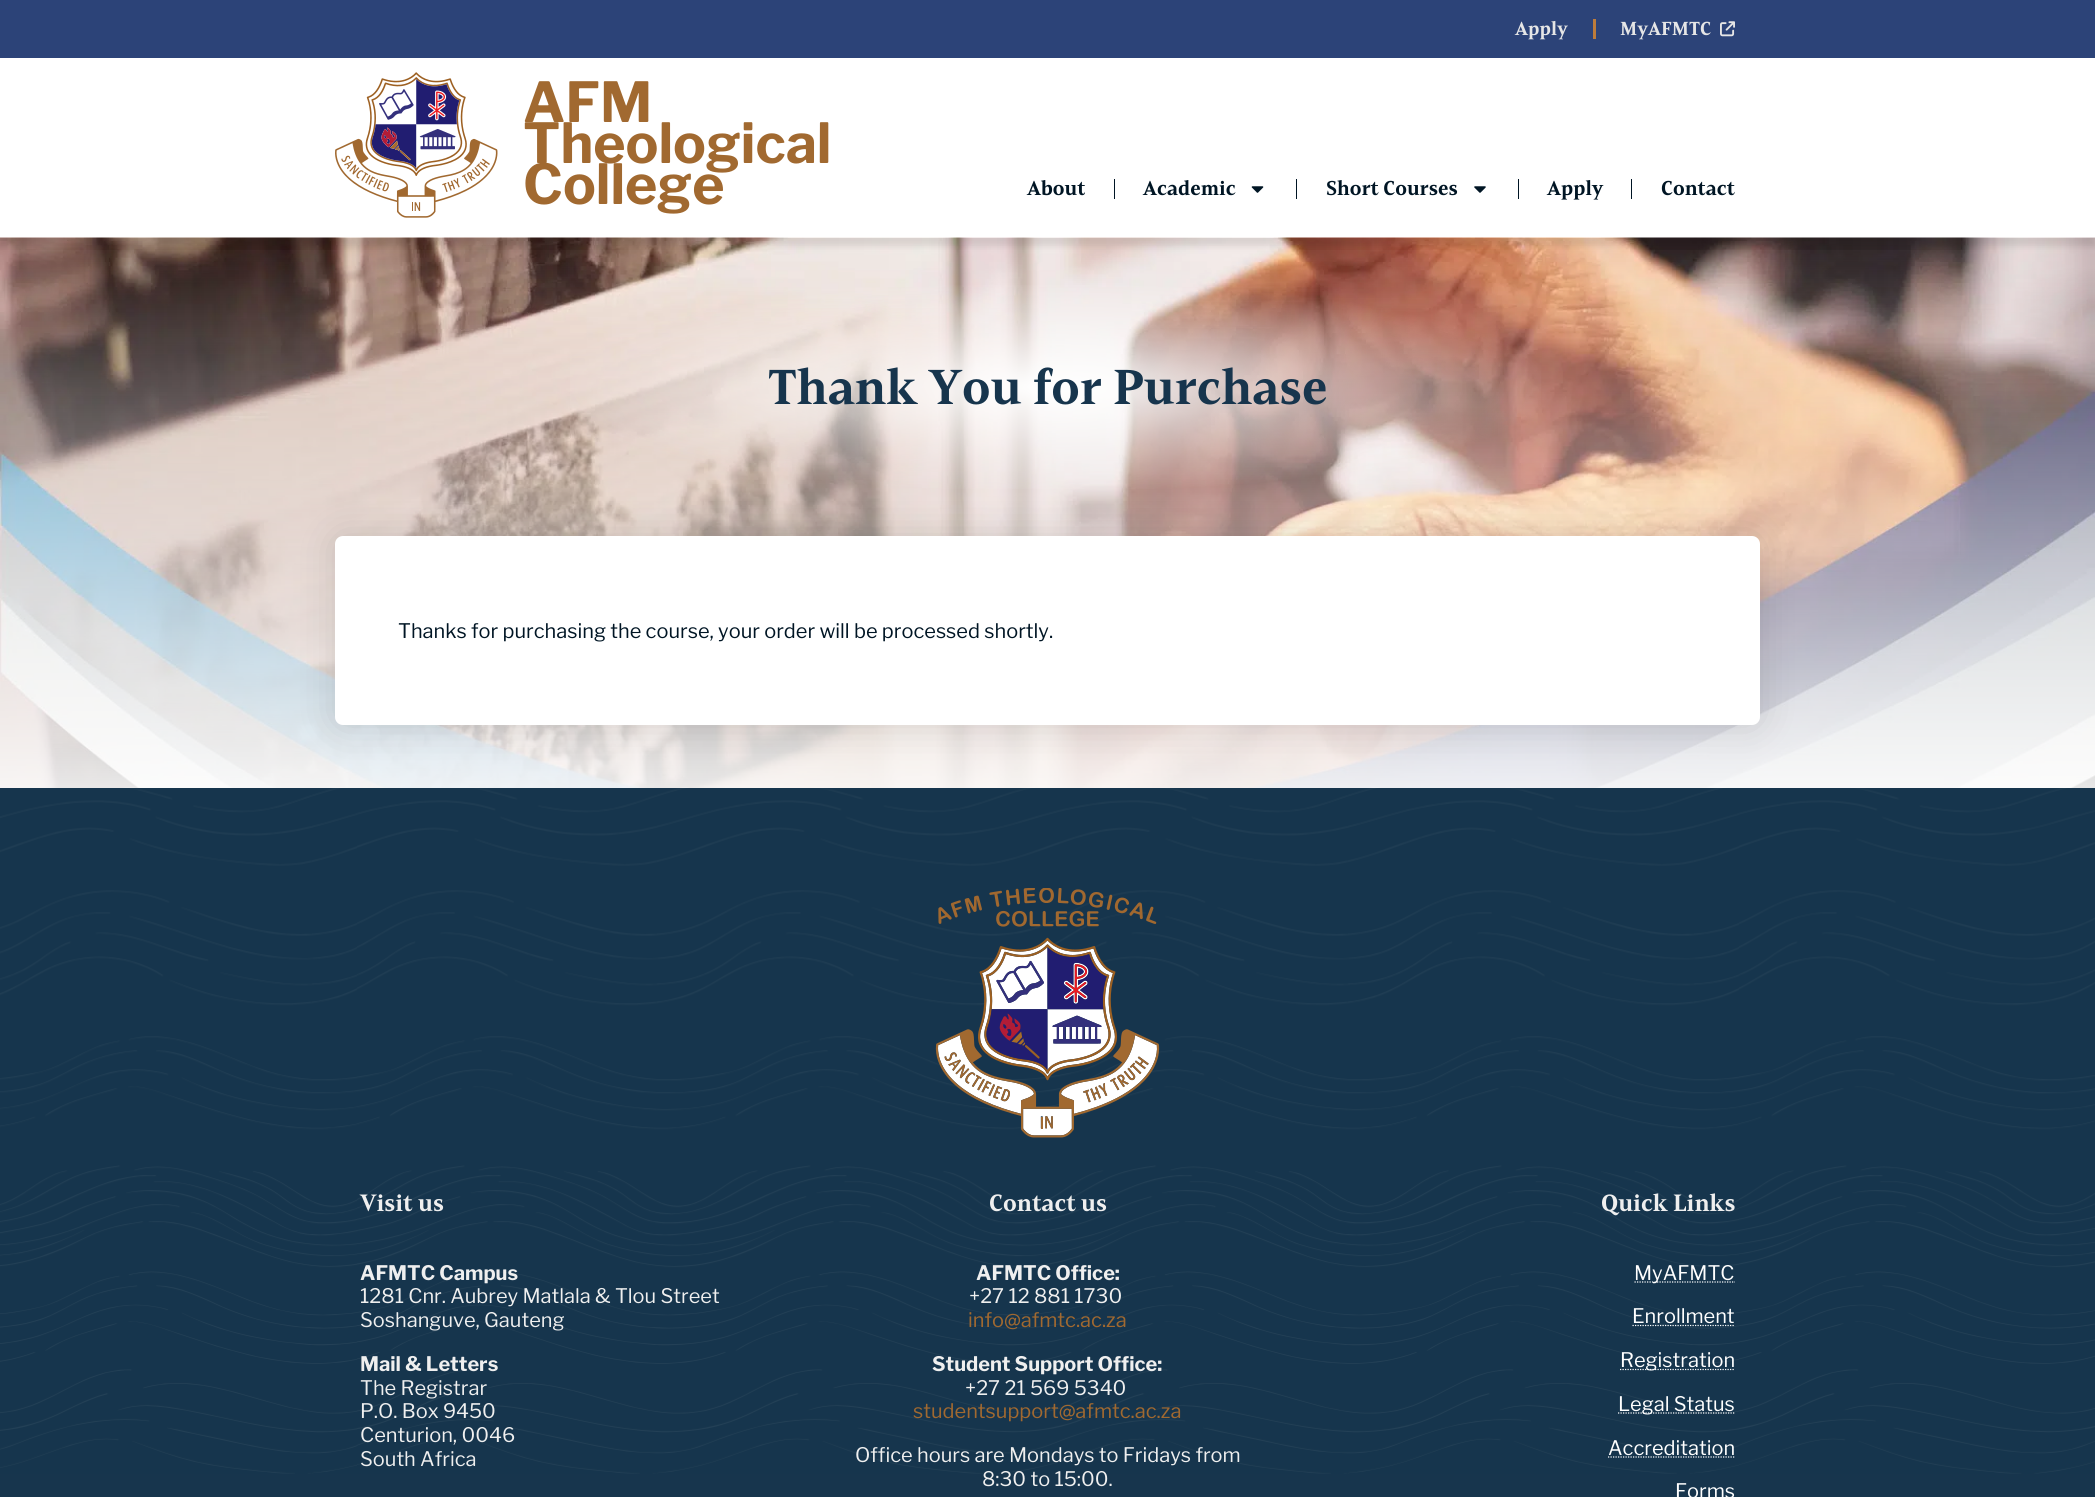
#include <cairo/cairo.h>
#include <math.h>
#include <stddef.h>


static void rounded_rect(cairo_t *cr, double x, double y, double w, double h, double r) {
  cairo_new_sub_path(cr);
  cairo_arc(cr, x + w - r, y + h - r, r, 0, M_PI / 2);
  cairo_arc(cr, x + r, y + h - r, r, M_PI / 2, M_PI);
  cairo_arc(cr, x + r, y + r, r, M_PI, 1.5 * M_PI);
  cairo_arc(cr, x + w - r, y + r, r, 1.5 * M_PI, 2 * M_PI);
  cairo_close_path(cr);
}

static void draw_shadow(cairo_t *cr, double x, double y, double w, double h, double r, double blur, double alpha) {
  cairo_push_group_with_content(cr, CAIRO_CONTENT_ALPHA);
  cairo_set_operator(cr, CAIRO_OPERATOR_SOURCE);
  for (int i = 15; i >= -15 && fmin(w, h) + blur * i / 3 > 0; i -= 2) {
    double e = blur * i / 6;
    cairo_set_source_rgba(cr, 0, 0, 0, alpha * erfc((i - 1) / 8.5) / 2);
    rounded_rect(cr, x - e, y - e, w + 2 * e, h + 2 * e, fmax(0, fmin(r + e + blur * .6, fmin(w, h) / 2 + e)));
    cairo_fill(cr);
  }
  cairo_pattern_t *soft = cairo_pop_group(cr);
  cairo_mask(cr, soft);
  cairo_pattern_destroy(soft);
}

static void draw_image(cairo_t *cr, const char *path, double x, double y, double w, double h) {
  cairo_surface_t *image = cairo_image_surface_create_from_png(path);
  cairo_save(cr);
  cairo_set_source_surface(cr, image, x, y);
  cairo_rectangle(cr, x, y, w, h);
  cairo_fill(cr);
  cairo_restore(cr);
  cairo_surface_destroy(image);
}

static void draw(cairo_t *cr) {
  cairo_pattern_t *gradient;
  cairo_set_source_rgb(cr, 1, 1, 1);
  cairo_paint(cr);
  cairo_set_source_rgb(cr, 44 / 255.0, 67 / 255.0, 120 / 255.0);
  cairo_rectangle(cr, 0, 0, 2095, 58);
  cairo_fill(cr);
  cairo_set_source_rgb(cr, 189 / 255.0, 124 / 255.0, 59 / 255.0);
  cairo_rectangle(cr, 1593, 19, 3, 20);
  cairo_fill(cr);
  draw_image(cr, "images/1.png", 1720, 21, 15, 16);
  draw_image(cr, "images/5.png", 0, 237, 2095, 551);
  gradient = cairo_pattern_create_linear(1048, 237, 1048, 849);
  cairo_pattern_add_color_stop_rgba(gradient, 0, 1, 1, 1, 0);
  cairo_pattern_add_color_stop_rgba(gradient, 1, 1, 1, 1, 1);
  cairo_set_source(cr, gradient);
  cairo_pattern_destroy(gradient);
  cairo_rectangle(cr, 0, 250, 2095, 538);
  cairo_fill(cr);
  cairo_save(cr);
  cairo_set_fill_rule(cr, CAIRO_FILL_RULE_EVEN_ODD);
  cairo_new_path(cr);
  cairo_move_to(cr, 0, 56);
  cairo_line_to(cr, 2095, 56);
  cairo_line_to(cr, 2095, 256);
  cairo_line_to(cr, 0, 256);
  cairo_close_path(cr);
  cairo_move_to(cr, 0, 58);
  cairo_line_to(cr, 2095, 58);
  cairo_line_to(cr, 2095, 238);
  cairo_line_to(cr, 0, 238);
  cairo_close_path(cr);
  cairo_clip(cr);
  cairo_set_source_rgb(cr, 0, 0, 0);
  draw_shadow(cr, 0, 66, 2095, 180, 0, 3, 0.1);
  cairo_restore(cr);
  draw_image(cr, "images/2.png", 335, 72, 163, 146);
  cairo_set_source_rgb(cr, 0, 21 / 255.0, 36 / 255.0);
  cairo_rectangle(cr, 1114, 179, 1, 20);
  cairo_fill(cr);
  draw_image(cr, "images/3.png", 1251, 186, 13, 7);
  cairo_rectangle(cr, 1296, 179, 1, 20);
  cairo_fill(cr);
  draw_image(cr, "images/4.png", 1474, 186, 12, 7);
  cairo_rectangle(cr, 1518, 179, 1, 20);
  cairo_fill(cr);
  cairo_rectangle(cr, 1631, 179, 1, 20);
  cairo_fill(cr);
  gradient = cairo_pattern_create_radial(0, 0, 0, 0, 0, 1);
  cairo_pattern_set_matrix(gradient, &(cairo_matrix_t){1.0 / 1008, 0, 0, 1.0 / 211, -1.0 * 1048 / 1008, -1.0 * 387 / 211});
  cairo_pattern_add_color_stop_rgba(gradient, 0, 1, 1, 1, 1);
  cairo_pattern_add_color_stop_rgba(gradient, 0.5, 1, 1, 1, 0);
  cairo_set_source(cr, gradient);
  cairo_pattern_destroy(gradient);
  cairo_rectangle(cr, 570, 285, 971, 204);
  cairo_fill(cr);
  cairo_set_source_rgb(cr, 0, 0, 0);
  draw_shadow(cr, 335, 536, 1425, 189, 8, 19, 0.13);
  cairo_set_source_rgb(cr, 1, 1, 1);
  rounded_rect(cr, 335, 536, 1425, 189, 8);
  cairo_fill(cr);
  cairo_set_source_rgb(cr, 23 / 255.0, 53 / 255.0, 77 / 255.0);
  cairo_rectangle(cr, 0, 788, 2095, 709);
  cairo_fill(cr);
  draw_image(cr, "images/6.png", 0, 787, 2095, 687);
  cairo_set_source_rgba(cr, 23 / 255.0, 53 / 255.0, 77 / 255.0, 0.94);
  cairo_rectangle(cr, 0, 788, 2095, 686);
  cairo_fill(cr);
  draw_image(cr, "images/7.png", 935, 888, 225, 250);
  cairo_new_path(cr);
  cairo_move_to(cr, 1634.5, 1282);
  cairo_line_to(cr, 1735, 1282);
  cairo_set_source_rgb(cr, 1, 1, 1);
  cairo_set_line_width(cr, 1.2);
  cairo_set_dash(cr, (double[]){1.25, 1.25}, 2, 0);
  cairo_stroke(cr);
  cairo_new_path(cr);
  cairo_move_to(cr, 1632.5, 1325.5);
  cairo_line_to(cr, 1735, 1325.5);
  cairo_stroke(cr);
  cairo_new_path(cr);
  cairo_move_to(cr, 1620, 1369.5);
  cairo_line_to(cr, 1735, 1369.5);
  cairo_stroke(cr);
  cairo_new_path(cr);
  cairo_move_to(cr, 1618, 1413);
  cairo_line_to(cr, 1735, 1413);
  cairo_stroke(cr);
  cairo_new_path(cr);
  cairo_move_to(cr, 1608, 1457);
  cairo_line_to(cr, 1735, 1457);
  cairo_stroke(cr);
  cairo_select_font_face(cr, "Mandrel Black", CAIRO_FONT_SLANT_NORMAL, CAIRO_FONT_WEIGHT_NORMAL);
  cairo_set_font_size(cr, 18.75);
  cairo_set_source_rgb(cr, 230 / 255.0, 230 / 255.0, 230 / 255.0);
  cairo_move_to(cr, 1515, 35);
  cairo_show_text(cr, "Apply");
  cairo_move_to(cr, 1620, 35);
  cairo_show_text(cr, "MyAFMTC");
  cairo_select_font_face(cr, "Libre Franklin", CAIRO_FONT_SLANT_NORMAL, CAIRO_FONT_WEIGHT_BOLD);
  cairo_set_font_size(cr, 55);
  cairo_set_source_rgb(cr, 161 / 255.0, 105 / 255.0, 48 / 255.0);
  cairo_move_to(cr, 523, 122);
  cairo_show_text(cr, "AFM");
  cairo_move_to(cr, 523, 163);
  cairo_show_text(cr, "Theological");
  cairo_move_to(cr, 523, 204);
  cairo_show_text(cr, "College");
  cairo_select_font_face(cr, "Mandrel Black", CAIRO_FONT_SLANT_NORMAL, CAIRO_FONT_WEIGHT_NORMAL);
  cairo_set_font_size(cr, 20);
  cairo_set_source_rgb(cr, 0, 21 / 255.0, 36 / 255.0);
  cairo_move_to(cr, 1027, 195);
  cairo_show_text(cr, "About");
  cairo_move_to(cr, 1143, 195);
  cairo_show_text(cr, "Academic");
  cairo_move_to(cr, 1326, 195);
  cairo_show_text(cr, "Short Courses");
  cairo_move_to(cr, 1547, 195);
  cairo_show_text(cr, "Apply");
  cairo_move_to(cr, 1661, 195);
  cairo_show_text(cr, "Contact");
  cairo_set_font_size(cr, 48.75);
  cairo_set_source_rgb(cr, 23 / 255.0, 53 / 255.0, 77 / 255.0);
  cairo_move_to(cr, 768, 404);
  cairo_show_text(cr, "Thank You for Purchase");
  cairo_select_font_face(cr, "Libre Franklin", CAIRO_FONT_SLANT_NORMAL, CAIRO_FONT_WEIGHT_NORMAL);
  cairo_set_font_size(cr, 20);
  cairo_set_source_rgb(cr, 0, 21 / 255.0, 36 / 255.0);
  cairo_move_to(cr, 398, 638);
  cairo_show_text(cr, "Thanks for purchasing the course, your order will be processed shortly.");
  cairo_select_font_face(cr, "Mandrel Black", CAIRO_FONT_SLANT_NORMAL, CAIRO_FONT_WEIGHT_NORMAL);
  cairo_set_font_size(cr, 23.5);
  cairo_set_source_rgb(cr, 239 / 255.0, 239 / 255.0, 239 / 255.0);
  cairo_move_to(cr, 360, 1211);
  cairo_show_text(cr, "Visit us");
  cairo_select_font_face(cr, "Libre Franklin", CAIRO_FONT_SLANT_NORMAL, CAIRO_FONT_WEIGHT_BOLD);
  cairo_set_font_size(cr, 20);
  cairo_move_to(cr, 360, 1280);
  cairo_show_text(cr, "AFMTC Campus");
  cairo_select_font_face(cr, "Libre Franklin", CAIRO_FONT_SLANT_NORMAL, CAIRO_FONT_WEIGHT_NORMAL);
  cairo_move_to(cr, 360, 1303);
  cairo_show_text(cr, "1281 Cnr. Aubrey Matlala & Tlou Street");
  cairo_move_to(cr, 360, 1327);
  cairo_show_text(cr, "Soshanguve, Gauteng");
  cairo_select_font_face(cr, "Libre Franklin", CAIRO_FONT_SLANT_NORMAL, CAIRO_FONT_WEIGHT_BOLD);
  cairo_move_to(cr, 360, 1371);
  cairo_show_text(cr, "Mail & Letters");
  cairo_select_font_face(cr, "Libre Franklin", CAIRO_FONT_SLANT_NORMAL, CAIRO_FONT_WEIGHT_NORMAL);
  cairo_move_to(cr, 360, 1395);
  cairo_show_text(cr, "The Registrar");
  cairo_move_to(cr, 360, 1418);
  cairo_show_text(cr, "P.O. Box 9450");
  cairo_move_to(cr, 360, 1442);
  cairo_show_text(cr, "Centurion, 0046");
  cairo_move_to(cr, 360, 1466);
  cairo_show_text(cr, "South Africa");
  cairo_select_font_face(cr, "Mandrel Black", CAIRO_FONT_SLANT_NORMAL, CAIRO_FONT_WEIGHT_NORMAL);
  cairo_set_font_size(cr, 23.5);
  cairo_move_to(cr, 989, 1211);
  cairo_show_text(cr, "Contact us");
  cairo_select_font_face(cr, "Libre Franklin", CAIRO_FONT_SLANT_NORMAL, CAIRO_FONT_WEIGHT_BOLD);
  cairo_set_font_size(cr, 20);
  cairo_move_to(cr, 976, 1280);
  cairo_show_text(cr, "AFMTC Office:");
  cairo_select_font_face(cr, "Libre Franklin", CAIRO_FONT_SLANT_NORMAL, CAIRO_FONT_WEIGHT_NORMAL);
  cairo_move_to(cr, 969, 1303);
  cairo_show_text(cr, "+27 12 881 1730");
  cairo_set_source_rgb(cr, 161 / 255.0, 105 / 255.0, 48 / 255.0);
  cairo_move_to(cr, 968, 1327);
  cairo_show_text(cr, "info@afmtc.ac.za");
  cairo_select_font_face(cr, "Libre Franklin", CAIRO_FONT_SLANT_NORMAL, CAIRO_FONT_WEIGHT_BOLD);
  cairo_set_source_rgb(cr, 239 / 255.0, 239 / 255.0, 239 / 255.0);
  cairo_move_to(cr, 932, 1371);
  cairo_show_text(cr, "Student Support Office:");
  cairo_select_font_face(cr, "Libre Franklin", CAIRO_FONT_SLANT_NORMAL, CAIRO_FONT_WEIGHT_NORMAL);
  cairo_move_to(cr, 965, 1395);
  cairo_show_text(cr, "+27 21 569 5340");
  cairo_set_source_rgb(cr, 161 / 255.0, 105 / 255.0, 48 / 255.0);
  cairo_move_to(cr, 913, 1418);
  cairo_show_text(cr, "studentsupport@afmtc.ac.za");
  cairo_set_source_rgb(cr, 239 / 255.0, 239 / 255.0, 239 / 255.0);
  cairo_move_to(cr, 855, 1462);
  cairo_show_text(cr, "Office hours are Mondays to Fridays from");
  cairo_move_to(cr, 982, 1486);
  cairo_show_text(cr, "8:30 to 15:00.");
  cairo_select_font_face(cr, "Mandrel Black", CAIRO_FONT_SLANT_NORMAL, CAIRO_FONT_WEIGHT_NORMAL);
  cairo_set_font_size(cr, 23.5);
  cairo_move_to(cr, 1601, 1211);
  cairo_show_text(cr, "Quick Links");
  cairo_select_font_face(cr, "Libre Franklin", CAIRO_FONT_SLANT_NORMAL, CAIRO_FONT_WEIGHT_NORMAL);
  cairo_set_font_size(cr, 20);
  cairo_set_source_rgb(cr, 1, 1, 1);
  cairo_move_to(cr, 1634, 1280);
  cairo_show_text(cr, "MyAFMTC");
  cairo_move_to(cr, 1632, 1323);
  cairo_show_text(cr, "Enrollment");
  cairo_move_to(cr, 1620, 1367);
  cairo_show_text(cr, "Registration");
  cairo_move_to(cr, 1618, 1411);
  cairo_show_text(cr, "Legal Status");
  cairo_move_to(cr, 1608, 1455);
  cairo_show_text(cr, "Accreditation");
  cairo_move_to(cr, 1675, 1498);
  cairo_show_text(cr, "Forms");
}

int main(void) {
  cairo_surface_t *surface = cairo_image_surface_create(CAIRO_FORMAT_RGB24, 2095, 1497);
  cairo_t *cr = cairo_create(surface);
  cairo_font_options_t *options = cairo_font_options_create();
  cairo_font_options_set_hint_metrics(options, CAIRO_HINT_METRICS_OFF);
  cairo_font_options_set_hint_style(options, CAIRO_HINT_STYLE_NONE);
  cairo_set_font_options(cr, options);
  cairo_set_miter_limit(cr, 4);
  draw(cr);
  cairo_surface_write_to_png(surface, "out.png");
  cairo_font_options_destroy(options);
  cairo_destroy(cr);
  cairo_surface_destroy(surface);
  return 0;
}
